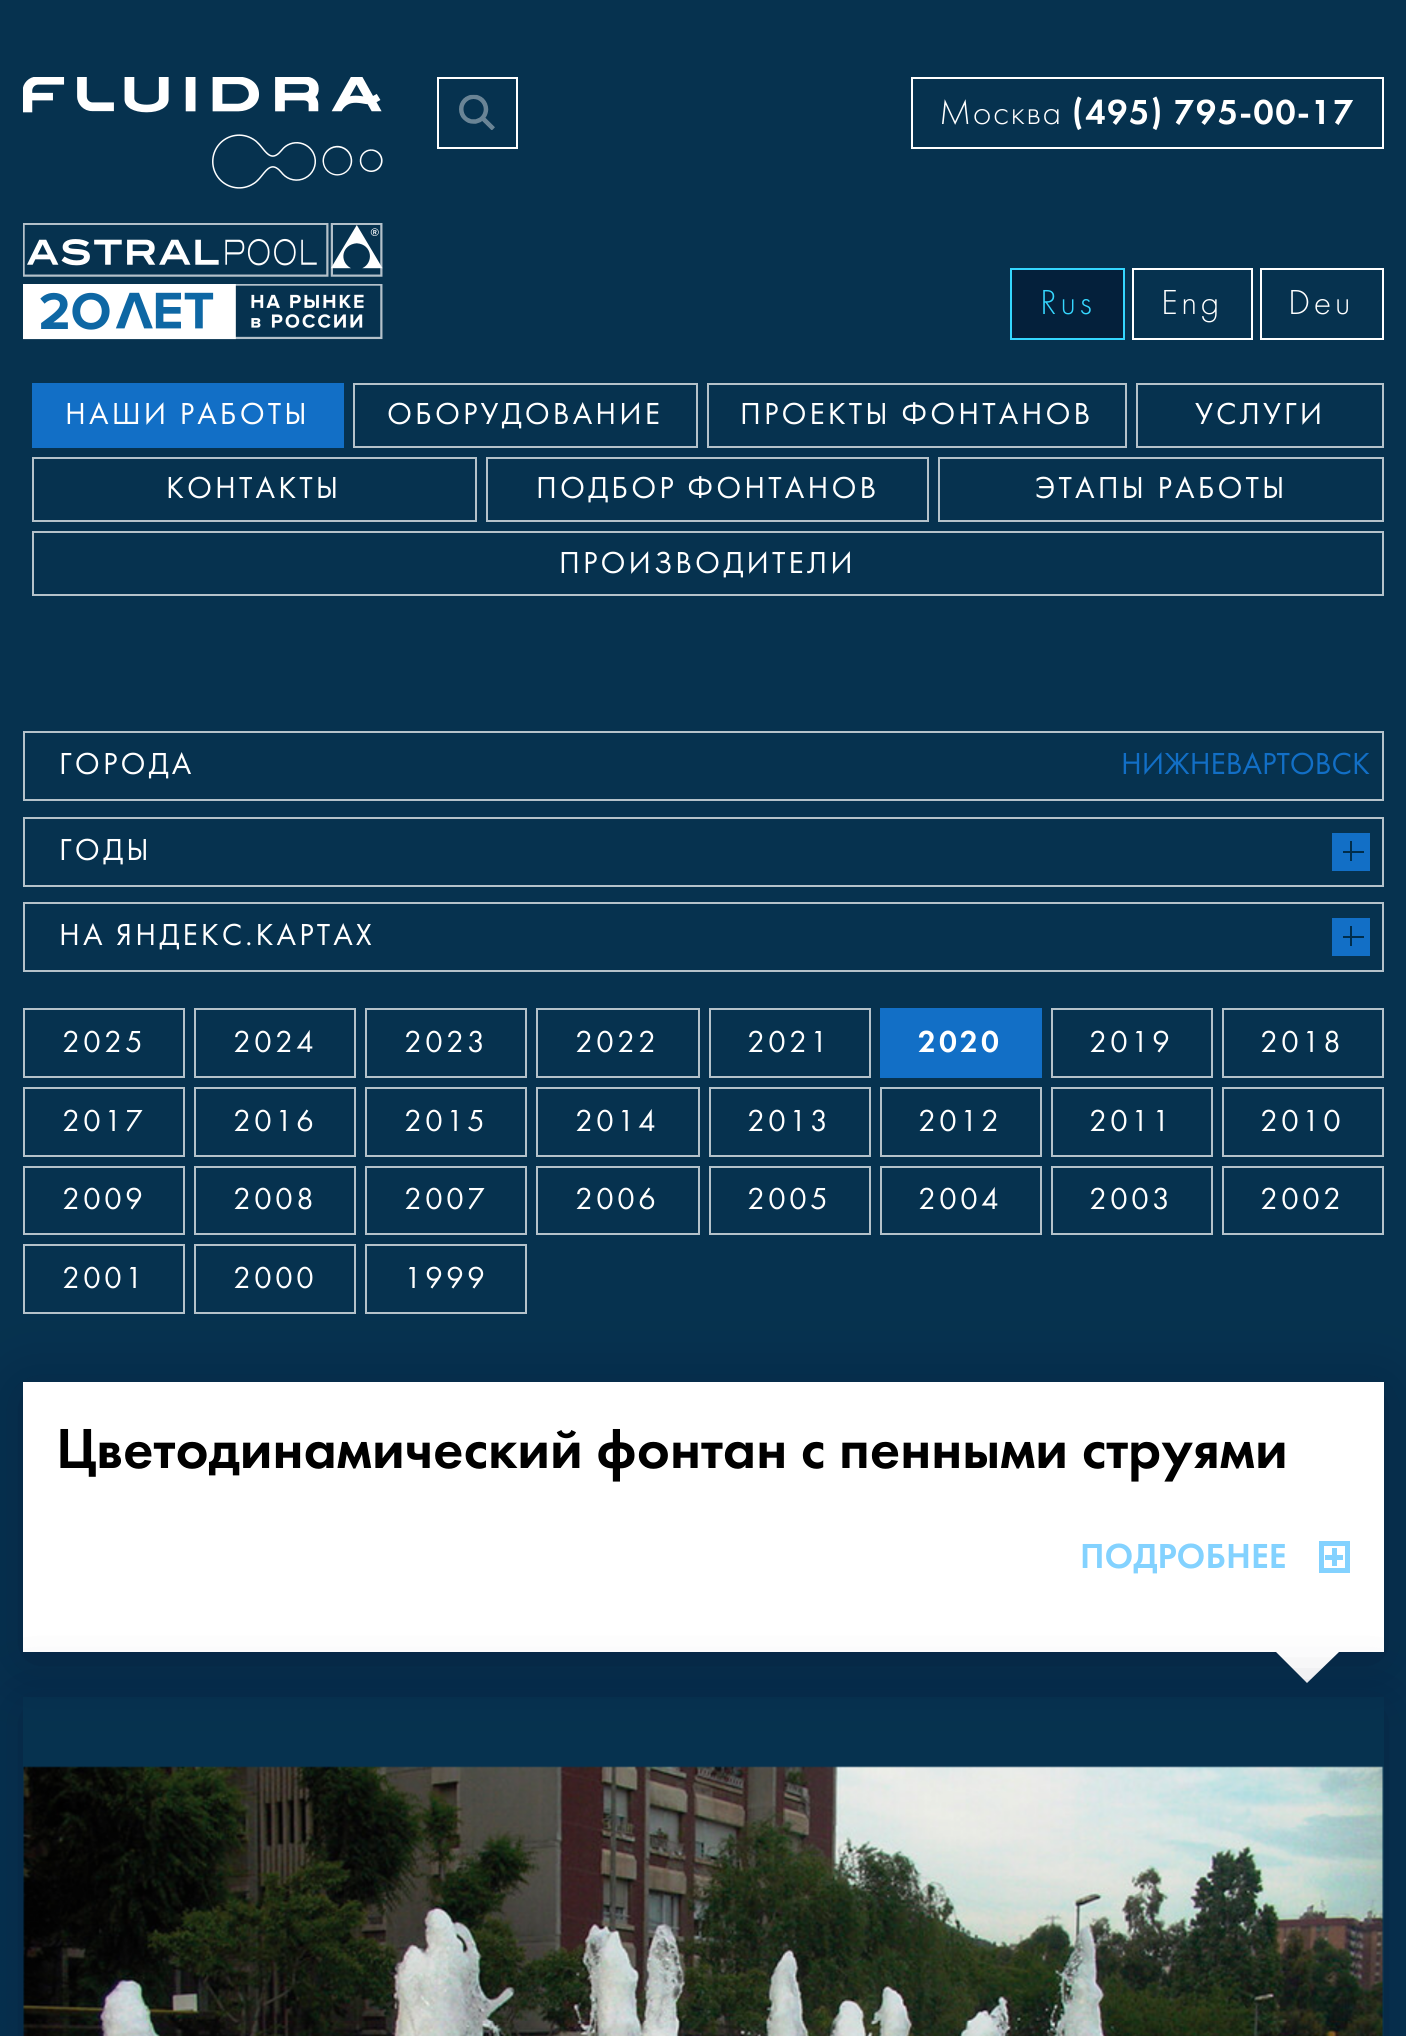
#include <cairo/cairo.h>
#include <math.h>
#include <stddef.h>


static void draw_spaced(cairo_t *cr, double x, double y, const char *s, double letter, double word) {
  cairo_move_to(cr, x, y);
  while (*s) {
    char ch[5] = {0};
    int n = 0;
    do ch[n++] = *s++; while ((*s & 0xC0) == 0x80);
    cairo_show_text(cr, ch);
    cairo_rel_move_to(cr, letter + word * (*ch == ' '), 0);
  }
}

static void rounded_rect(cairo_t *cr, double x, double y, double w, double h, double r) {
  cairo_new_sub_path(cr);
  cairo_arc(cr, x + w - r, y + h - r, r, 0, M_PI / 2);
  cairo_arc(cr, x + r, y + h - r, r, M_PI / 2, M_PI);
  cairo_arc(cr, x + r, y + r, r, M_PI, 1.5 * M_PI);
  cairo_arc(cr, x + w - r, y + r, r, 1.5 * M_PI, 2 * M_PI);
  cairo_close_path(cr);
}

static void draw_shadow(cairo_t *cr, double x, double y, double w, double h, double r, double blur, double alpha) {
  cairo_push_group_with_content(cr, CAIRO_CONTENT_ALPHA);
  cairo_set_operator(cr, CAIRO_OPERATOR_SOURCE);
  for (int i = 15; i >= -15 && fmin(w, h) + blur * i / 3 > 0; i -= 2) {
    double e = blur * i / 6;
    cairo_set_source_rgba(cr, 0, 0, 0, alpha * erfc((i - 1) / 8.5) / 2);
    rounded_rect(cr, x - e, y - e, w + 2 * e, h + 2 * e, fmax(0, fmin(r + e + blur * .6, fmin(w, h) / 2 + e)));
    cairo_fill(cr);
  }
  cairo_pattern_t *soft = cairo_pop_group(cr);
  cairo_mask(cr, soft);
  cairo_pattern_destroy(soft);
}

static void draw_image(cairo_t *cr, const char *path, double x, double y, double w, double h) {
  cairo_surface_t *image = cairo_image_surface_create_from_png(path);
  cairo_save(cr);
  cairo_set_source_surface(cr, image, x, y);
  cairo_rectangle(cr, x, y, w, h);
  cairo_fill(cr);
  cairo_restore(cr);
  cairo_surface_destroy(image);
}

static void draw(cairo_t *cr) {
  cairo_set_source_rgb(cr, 6 / 255.0, 50 / 255.0, 79 / 255.0);
  cairo_paint(cr);
  draw_image(cr, "images/1.png", 23, 77, 360, 112);
  draw_image(cr, "images/2.png", 23, 223, 360, 54);
  draw_image(cr, "images/3.png", 23, 284, 360, 56);
  cairo_rectangle(cr, 438, 78, 79, 70);
  cairo_set_source_rgb(cr, 1, 1, 1);
  cairo_stroke(cr);
  draw_image(cr, "images/4.png", 459, 94, 36, 36);
  cairo_rectangle(cr, 912, 78, 471, 70);
  cairo_stroke(cr);
  cairo_set_source_rgb(cr, 4 / 255.0, 32 / 255.0, 59 / 255.0);
  cairo_rectangle(cr, 1011, 269, 113, 70);
  cairo_fill_preserve(cr);
  cairo_set_source_rgb(cr, 53 / 255.0, 215 / 255.0, 1);
  cairo_stroke(cr);
  cairo_rectangle(cr, 1133, 269, 119, 70);
  cairo_set_source_rgb(cr, 1, 1, 1);
  cairo_stroke(cr);
  cairo_rectangle(cr, 1261, 269, 122, 70);
  cairo_stroke(cr);
  cairo_set_source_rgb(cr, 18 / 255.0, 111 / 255.0, 198 / 255.0);
  cairo_rectangle(cr, 32, 383, 312, 65);
  cairo_fill(cr);
  cairo_rectangle(cr, 354, 384, 343, 63);
  cairo_set_source_rgb(cr, 180 / 255.0, 194 / 255.0, 202 / 255.0);
  cairo_stroke(cr);
  cairo_rectangle(cr, 708, 384, 418, 63);
  cairo_stroke(cr);
  cairo_rectangle(cr, 1137, 384, 246, 63);
  cairo_stroke(cr);
  cairo_rectangle(cr, 33, 458, 443, 63);
  cairo_stroke(cr);
  cairo_rectangle(cr, 487, 458, 441, 63);
  cairo_stroke(cr);
  cairo_rectangle(cr, 939, 458, 444, 63);
  cairo_stroke(cr);
  cairo_rectangle(cr, 33, 532, 1350, 63);
  cairo_stroke(cr);
  cairo_rectangle(cr, 24, 732, 1359, 68);
  cairo_stroke(cr);
  cairo_rectangle(cr, 24, 818, 1359, 68);
  cairo_stroke(cr);
  cairo_set_source_rgb(cr, 18 / 255.0, 111 / 255.0, 198 / 255.0);
  cairo_rectangle(cr, 1332, 833, 38, 38);
  cairo_fill(cr);
  cairo_set_source_rgb(cr, 0, 45 / 255.0, 75 / 255.0);
  cairo_rectangle(cr, 1343, 851, 21, 2);
  cairo_fill(cr);
  cairo_rectangle(cr, 1350, 841, 2, 20);
  cairo_fill(cr);
  cairo_rectangle(cr, 24, 903, 1359, 68);
  cairo_set_source_rgb(cr, 180 / 255.0, 194 / 255.0, 202 / 255.0);
  cairo_stroke(cr);
  cairo_set_source_rgb(cr, 18 / 255.0, 111 / 255.0, 198 / 255.0);
  cairo_rectangle(cr, 1332, 918, 38, 38);
  cairo_fill(cr);
  cairo_set_source_rgb(cr, 0, 45 / 255.0, 75 / 255.0);
  cairo_rectangle(cr, 1343, 936, 21, 2);
  cairo_fill(cr);
  cairo_rectangle(cr, 1350, 926, 2, 20);
  cairo_fill(cr);
  cairo_rectangle(cr, 24, 1009, 160, 68);
  cairo_set_source_rgb(cr, 180 / 255.0, 194 / 255.0, 202 / 255.0);
  cairo_stroke(cr);
  cairo_rectangle(cr, 195, 1009, 160, 68);
  cairo_stroke(cr);
  cairo_rectangle(cr, 366, 1009, 160, 68);
  cairo_stroke(cr);
  cairo_rectangle(cr, 537, 1009, 162, 68);
  cairo_stroke(cr);
  cairo_rectangle(cr, 710, 1009, 160, 68);
  cairo_stroke(cr);
  cairo_set_source_rgb(cr, 18 / 255.0, 111 / 255.0, 198 / 255.0);
  cairo_rectangle(cr, 880, 1008, 162, 70);
  cairo_fill(cr);
  cairo_rectangle(cr, 1052, 1009, 160, 68);
  cairo_set_source_rgb(cr, 180 / 255.0, 194 / 255.0, 202 / 255.0);
  cairo_stroke(cr);
  cairo_rectangle(cr, 1223, 1009, 160, 68);
  cairo_stroke(cr);
  cairo_rectangle(cr, 24, 1088, 160, 68);
  cairo_stroke(cr);
  cairo_rectangle(cr, 195, 1088, 160, 68);
  cairo_stroke(cr);
  cairo_rectangle(cr, 366, 1088, 160, 68);
  cairo_stroke(cr);
  cairo_rectangle(cr, 537, 1088, 162, 68);
  cairo_stroke(cr);
  cairo_rectangle(cr, 710, 1088, 160, 68);
  cairo_stroke(cr);
  cairo_rectangle(cr, 881, 1088, 160, 68);
  cairo_stroke(cr);
  cairo_rectangle(cr, 1052, 1088, 160, 68);
  cairo_stroke(cr);
  cairo_rectangle(cr, 1223, 1088, 160, 68);
  cairo_stroke(cr);
  cairo_rectangle(cr, 24, 1167, 160, 67);
  cairo_stroke(cr);
  cairo_rectangle(cr, 195, 1167, 160, 67);
  cairo_stroke(cr);
  cairo_rectangle(cr, 366, 1167, 160, 67);
  cairo_stroke(cr);
  cairo_rectangle(cr, 537, 1167, 162, 67);
  cairo_stroke(cr);
  cairo_rectangle(cr, 710, 1167, 160, 67);
  cairo_stroke(cr);
  cairo_rectangle(cr, 881, 1167, 160, 67);
  cairo_stroke(cr);
  cairo_rectangle(cr, 1052, 1167, 160, 67);
  cairo_stroke(cr);
  cairo_rectangle(cr, 1223, 1167, 160, 67);
  cairo_stroke(cr);
  cairo_rectangle(cr, 24, 1245, 160, 68);
  cairo_stroke(cr);
  cairo_rectangle(cr, 195, 1245, 160, 68);
  cairo_stroke(cr);
  cairo_rectangle(cr, 366, 1245, 160, 68);
  cairo_stroke(cr);
  cairo_set_source_rgb(cr, 4 / 255.0, 5 / 255.0, 43 / 255.0);
  draw_shadow(cr, 23, 1391, 1361, 270, 0, 32.5, 0.35);
  cairo_set_source_rgb(cr, 1, 1, 1);
  cairo_rectangle(cr, 23, 1382, 1361, 270);
  cairo_fill(cr);
  cairo_rectangle(cr, 1321.5, 1543.5, 26, 27);
  cairo_set_source_rgb(cr, 131 / 255.0, 210 / 255.0, 1);
  cairo_set_line_width(cr, 5);
  cairo_stroke(cr);
  cairo_rectangle(cr, 1325, 1555, 18, 5);
  cairo_fill(cr);
  cairo_rectangle(cr, 1332, 1548, 5, 18);
  cairo_fill(cr);
  cairo_set_source_rgb(cr, 1, 1, 1);
  cairo_new_path(cr);
  cairo_move_to(cr, 1276, 1652);
  cairo_line_to(cr, 1339, 1652);
  cairo_line_to(cr, 1307, 1683);
  cairo_close_path(cr);
  cairo_fill(cr);
  cairo_save(cr);
  cairo_set_fill_rule(cr, CAIRO_FILL_RULE_EVEN_ODD);
  cairo_new_path(cr);
  cairo_move_to(cr, 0, 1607);
  cairo_line_to(cr, 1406, 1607);
  cairo_line_to(cr, 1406, 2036);
  cairo_line_to(cr, 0, 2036);
  cairo_close_path(cr);
  cairo_move_to(cr, 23, 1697);
  cairo_line_to(cr, 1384, 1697);
  cairo_line_to(cr, 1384, 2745);
  cairo_line_to(cr, 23, 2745);
  cairo_close_path(cr);
  cairo_clip(cr);
  cairo_set_source_rgb(cr, 4 / 255.0, 5 / 255.0, 43 / 255.0);
  draw_shadow(cr, 23, 1706, 1361, 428, 0, 32.5, 0.35);
  cairo_restore(cr);
  draw_image(cr, "images/5.png", 23, 1766, 1361, 270);
  cairo_select_font_face(cr, "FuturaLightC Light", CAIRO_FONT_SLANT_NORMAL, CAIRO_FONT_WEIGHT_NORMAL);
  cairo_set_font_size(cr, 36);
  draw_spaced(cr, 939, 124, "Москва", 1.5, 0);
  cairo_select_font_face(cr, "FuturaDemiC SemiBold", CAIRO_FONT_SLANT_NORMAL, CAIRO_FONT_WEIGHT_NORMAL);
  draw_spaced(cr, 1072, 124, "(495) 795-00-17", 1.5, 0);
  cairo_select_font_face(cr, "FuturaLightC Light", CAIRO_FONT_SLANT_NORMAL, CAIRO_FONT_WEIGHT_NORMAL);
  cairo_set_source_rgb(cr, 53 / 255.0, 215 / 255.0, 1);
  draw_spaced(cr, 1040, 314, "Rus", 3.5, 0);
  cairo_set_source_rgb(cr, 1, 1, 1);
  draw_spaced(cr, 1161, 314, "Eng", 3.5, 0);
  draw_spaced(cr, 1288, 314, "Deu", 3.5, 0);
  cairo_select_font_face(cr, "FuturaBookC", CAIRO_FONT_SLANT_NORMAL, CAIRO_FONT_WEIGHT_NORMAL);
  cairo_set_font_size(cr, 31.5);
  draw_spaced(cr, 65, 424, "НАШИ РАБОТЫ", 3.1, 0);
  draw_spaced(cr, 387, 424, "ОБОРУДОВАНИЕ", 3.1, 0);
  draw_spaced(cr, 740, 424, "ПРОЕКТЫ ФОНТАНОВ", 3.1, 0);
  draw_spaced(cr, 1195, 424, "УСЛУГИ", 3.1, 0);
  draw_spaced(cr, 166, 498, "КОНТАКТЫ", 3.1, 0);
  draw_spaced(cr, 536, 498, "ПОДБОР ФОНТАНОВ", 3.1, 0);
  draw_spaced(cr, 1035, 498, "ЭТАПЫ РАБОТЫ", 3.1, 0);
  draw_spaced(cr, 559, 573, "ПРОИЗВОДИТЕЛИ", 3.1, 0);
  draw_spaced(cr, 59, 774, "ГОРОДА", 3.1, 0);
  cairo_set_source_rgb(cr, 18 / 255.0, 111 / 255.0, 198 / 255.0);
  cairo_move_to(cr, 1121, 774);
  cairo_show_text(cr, "НИЖНЕВАРТОВСК");
  cairo_set_source_rgb(cr, 1, 1, 1);
  draw_spaced(cr, 59, 860, "ГОДЫ", 3.1, 0);
  draw_spaced(cr, 59, 945, "НА ЯНДЕКС.КАРТАХ", 3.1, 0);
  draw_spaced(cr, 62, 1052, "2025", 3.1, 0);
  draw_spaced(cr, 233, 1052, "2024", 3.1, 0);
  draw_spaced(cr, 404, 1052, "2023", 3.1, 0);
  draw_spaced(cr, 575, 1052, "2022", 3.1, 0);
  draw_spaced(cr, 747, 1052, "2021", 3.1, 0);
  cairo_select_font_face(cr, "FuturaDemiC SemiBold", CAIRO_FONT_SLANT_NORMAL, CAIRO_FONT_WEIGHT_NORMAL);
  draw_spaced(cr, 918, 1052, "2020", 3.1, 0);
  cairo_select_font_face(cr, "FuturaBookC", CAIRO_FONT_SLANT_NORMAL, CAIRO_FONT_WEIGHT_NORMAL);
  draw_spaced(cr, 1089, 1052, "2019", 3.1, 0);
  draw_spaced(cr, 1260, 1052, "2018", 3.1, 0);
  draw_spaced(cr, 62, 1131, "2017", 3.1, 0);
  draw_spaced(cr, 233, 1131, "2016", 3.1, 0);
  draw_spaced(cr, 404, 1131, "2015", 3.1, 0);
  draw_spaced(cr, 575, 1131, "2014", 3.1, 0);
  draw_spaced(cr, 747, 1131, "2013", 3.1, 0);
  draw_spaced(cr, 918, 1131, "2012", 3.1, 0);
  draw_spaced(cr, 1089, 1131, "2011", 3.1, 0);
  draw_spaced(cr, 1260, 1131, "2010", 3.1, 0);
  draw_spaced(cr, 62, 1209, "2009", 3.1, 0);
  draw_spaced(cr, 233, 1209, "2008", 3.1, 0);
  draw_spaced(cr, 404, 1209, "2007", 3.1, 0);
  draw_spaced(cr, 575, 1209, "2006", 3.1, 0);
  draw_spaced(cr, 747, 1209, "2005", 3.1, 0);
  draw_spaced(cr, 918, 1209, "2004", 3.1, 0);
  draw_spaced(cr, 1089, 1209, "2003", 3.1, 0);
  draw_spaced(cr, 1260, 1209, "2002", 3.1, 0);
  draw_spaced(cr, 62, 1288, "2001", 3.1, 0);
  draw_spaced(cr, 233, 1288, "2000", 3.1, 0);
  draw_spaced(cr, 404, 1288, "1999", 3.1, 0);
  cairo_select_font_face(cr, "FuturaDemiC SemiBold", CAIRO_FONT_SLANT_NORMAL, CAIRO_FONT_WEIGHT_NORMAL);
  cairo_set_font_size(cr, 58.5);
  cairo_set_source_rgb(cr, 0, 0, 0);
  cairo_move_to(cr, 56, 1468);
  cairo_show_text(cr, "Цветодинамический фонтан с пенными струями");
  cairo_set_font_size(cr, 36);
  cairo_set_source_rgb(cr, 131 / 255.0, 210 / 255.0, 1);
  cairo_move_to(cr, 1080, 1568);
  cairo_show_text(cr, "ПОДРОБНЕЕ");
}

int main(void) {
  cairo_surface_t *surface = cairo_image_surface_create(CAIRO_FORMAT_RGB24, 1406, 2036);
  cairo_t *cr = cairo_create(surface);
  cairo_font_options_t *options = cairo_font_options_create();
  cairo_font_options_set_hint_metrics(options, CAIRO_HINT_METRICS_OFF);
  cairo_font_options_set_hint_style(options, CAIRO_HINT_STYLE_NONE);
  cairo_set_font_options(cr, options);
  cairo_set_miter_limit(cr, 4);
  draw(cr);
  cairo_surface_write_to_png(surface, "out.png");
  cairo_font_options_destroy(options);
  cairo_destroy(cr);
  cairo_surface_destroy(surface);
  return 0;
}
